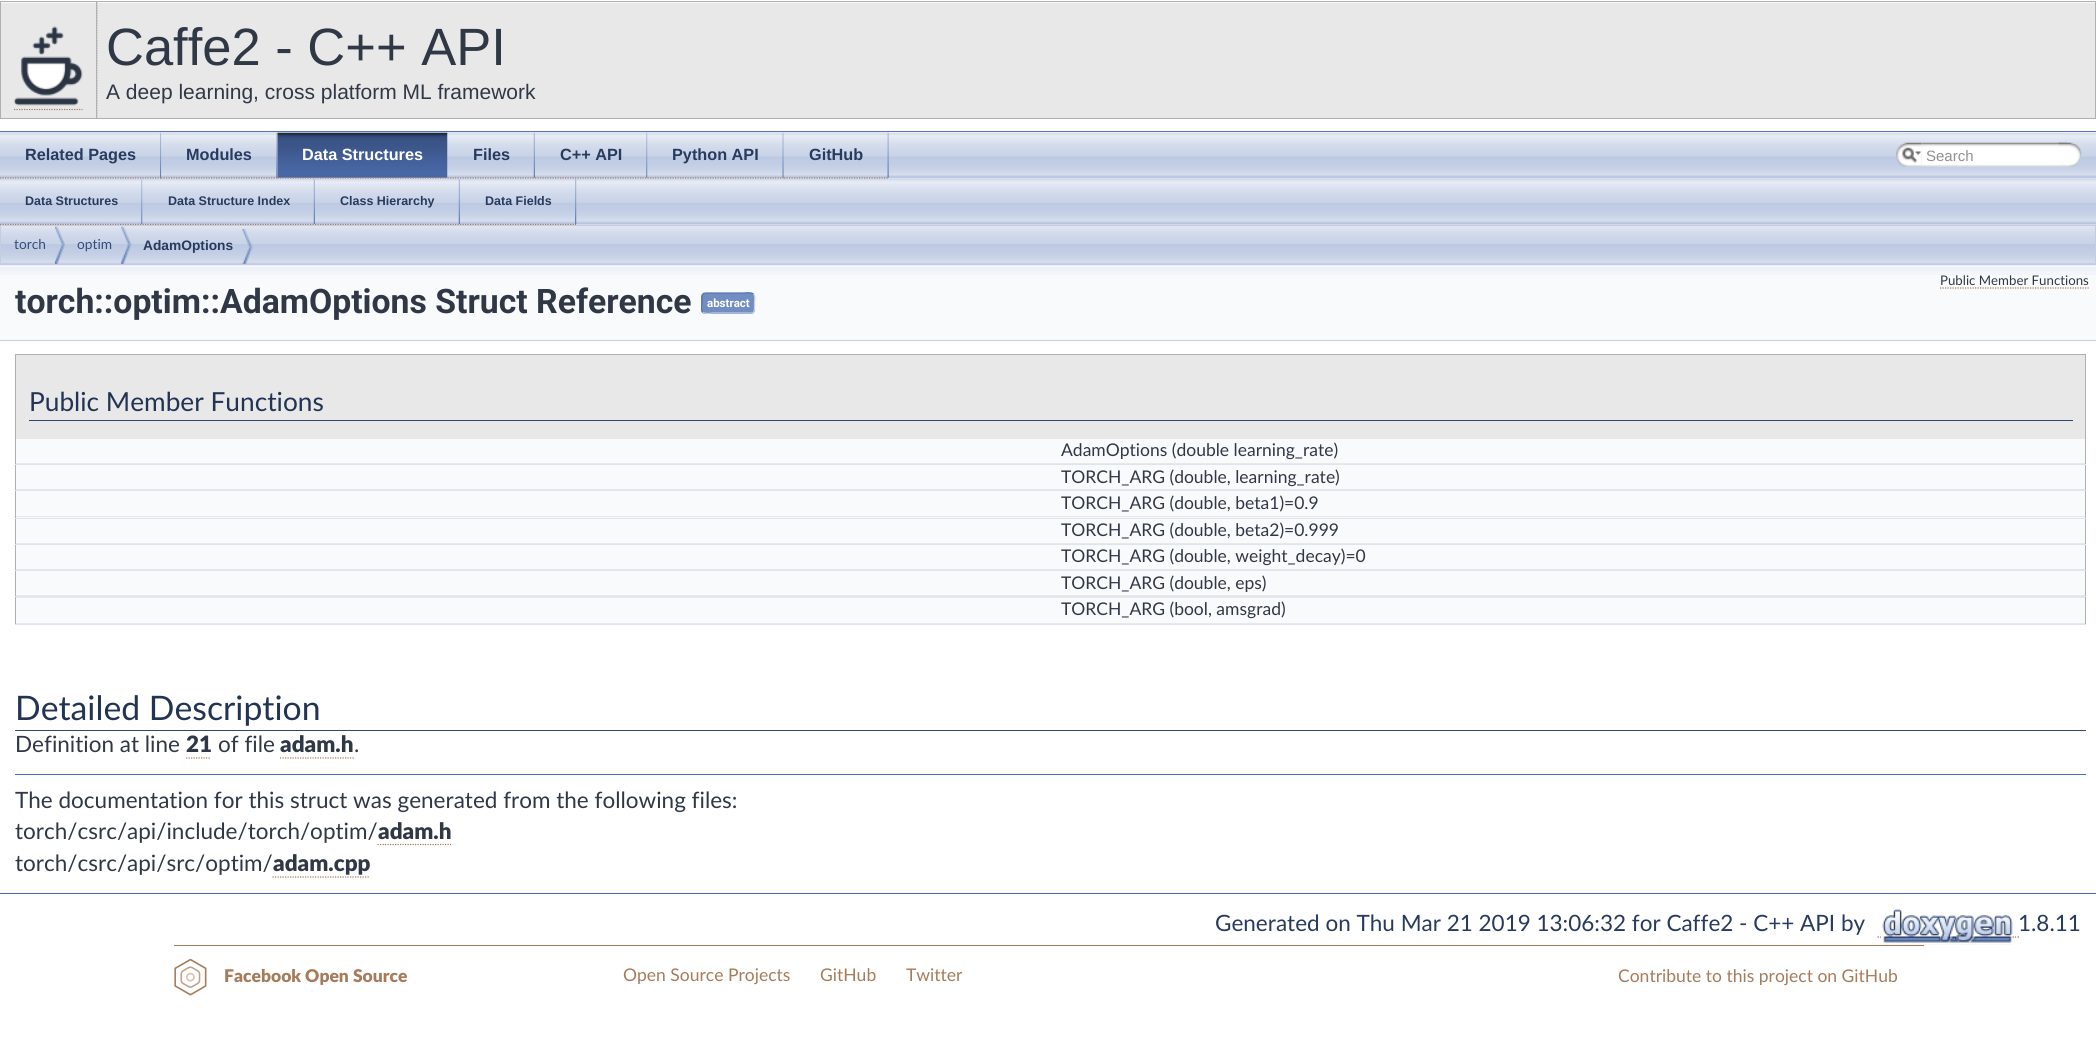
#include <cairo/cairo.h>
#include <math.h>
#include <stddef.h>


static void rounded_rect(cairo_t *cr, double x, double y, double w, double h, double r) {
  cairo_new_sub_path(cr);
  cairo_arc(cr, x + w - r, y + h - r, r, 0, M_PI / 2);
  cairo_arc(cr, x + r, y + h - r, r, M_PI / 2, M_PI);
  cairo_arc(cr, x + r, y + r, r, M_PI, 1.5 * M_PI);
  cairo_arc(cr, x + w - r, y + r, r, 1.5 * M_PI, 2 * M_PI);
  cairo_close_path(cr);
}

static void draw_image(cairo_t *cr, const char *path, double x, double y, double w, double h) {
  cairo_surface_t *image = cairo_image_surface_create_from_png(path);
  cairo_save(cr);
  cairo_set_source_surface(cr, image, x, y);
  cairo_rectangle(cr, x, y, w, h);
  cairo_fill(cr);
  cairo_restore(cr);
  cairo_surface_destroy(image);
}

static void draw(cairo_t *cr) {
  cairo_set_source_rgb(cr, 1, 1, 1);
  cairo_paint(cr);
  cairo_set_source_rgb(cr, 83 / 255.0, 115 / 255.0, 180 / 255.0);
  cairo_rectangle(cr, 0, 131, 2096, 1);
  cairo_fill(cr);
  cairo_set_source_rgb(cr, 248 / 255.0, 248 / 255.0, 248 / 255.0);
  cairo_rectangle(cr, 1, 2, 2094, 1);
  cairo_fill(cr);
  cairo_set_source_rgb(cr, 176 / 255.0, 176 / 255.0, 176 / 255.0);
  cairo_rectangle(cr, 0, 1, 2096, 1);
  cairo_fill(cr);
  cairo_rectangle(cr, 2095, 1, 1, 118);
  cairo_fill(cr);
  cairo_set_source_rgb(cr, 232 / 255.0, 232 / 255.0, 232 / 255.0);
  cairo_rectangle(cr, 1, 3, 2094, 115);
  cairo_fill(cr);
  cairo_new_path(cr);
  cairo_move_to(cr, 97, 2.5);
  cairo_line_to(cr, 97, 119);
  cairo_set_source_rgb(cr, 176 / 255.0, 176 / 255.0, 176 / 255.0);
  cairo_set_line_width(cr, 1.2);
  cairo_set_dash(cr, (double[]){1.25, 1.25}, 2, 0);
  cairo_stroke(cr);
  cairo_rectangle(cr, 0, 118, 2096, 1);
  cairo_fill(cr);
  cairo_rectangle(cr, 0, 1, 1, 118);
  cairo_fill(cr);
  cairo_rectangle(cr, 96, 1, 1, 118);
  cairo_fill(cr);
  draw_image(cr, "images/1.png", 13, 26, 70, 80);
  cairo_new_path(cr);
  cairo_move_to(cr, 14, 109.5);
  cairo_line_to(cr, 82.5, 109.5);
  cairo_set_source_rgb(cr, 166 / 255.0, 123 / 255.0, 91 / 255.0);
  cairo_stroke(cr);
  draw_image(cr, "images/2.png", 0, 132, 2096, 47);
  cairo_set_source_rgb(cr, 225 / 255.0, 230 / 255.0, 243 / 255.0);
  cairo_rectangle(cr, 0, 132, 161, 1);
  cairo_fill(cr);
  draw_image(cr, "images/3.png", 160, 132, 2, 46);
  cairo_new_path(cr);
  cairo_move_to(cr, 0, 178);
  cairo_line_to(cr, 161, 178);
  cairo_set_source_rgb(cr, 166 / 255.0, 123 / 255.0, 91 / 255.0);
  cairo_stroke(cr);
  draw_image(cr, "images/4.png", 161, 132, 117, 46);
  draw_image(cr, "images/5.png", 276, 132, 2, 46);
  cairo_new_path(cr);
  cairo_move_to(cr, 161, 178);
  cairo_line_to(cr, 277.5, 178);
  cairo_stroke(cr);
  draw_image(cr, "images/6.png", 277, 132, 171, 47);
  draw_image(cr, "images/7.png", 277, 132, 171, 46);
  cairo_new_path(cr);
  cairo_move_to(cr, 277.5, 178);
  cairo_line_to(cr, 447.5, 178);
  cairo_stroke(cr);
  draw_image(cr, "images/8.png", 447, 132, 88, 46);
  draw_image(cr, "images/9.png", 533, 132, 2, 46);
  cairo_new_path(cr);
  cairo_move_to(cr, 447.5, 178);
  cairo_line_to(cr, 535, 178);
  cairo_stroke(cr);
  draw_image(cr, "images/10.png", 535, 132, 113, 1);
  draw_image(cr, "images/11.png", 646, 132, 2, 46);
  cairo_new_path(cr);
  cairo_move_to(cr, 535, 178);
  cairo_line_to(cr, 647.5, 178);
  cairo_stroke(cr);
  draw_image(cr, "images/12.png", 647, 132, 137, 46);
  draw_image(cr, "images/13.png", 782, 132, 2, 46);
  cairo_new_path(cr);
  cairo_move_to(cr, 647.5, 178);
  cairo_line_to(cr, 784, 178);
  cairo_stroke(cr);
  draw_image(cr, "images/14.png", 783, 132, 106, 47);
  draw_image(cr, "images/13.png", 887, 132, 2, 46);
  cairo_new_path(cr);
  cairo_move_to(cr, 784, 178);
  cairo_line_to(cr, 889, 178);
  cairo_stroke(cr);
  draw_image(cr, "images/15.png", 1896, 142, 26, 25);
  draw_image(cr, "images/16.png", 1902, 147, 20, 16);
  draw_image(cr, "images/17.png", 1921, 142, 147, 25);
  draw_image(cr, "images/18.png", 2058, 142, 24, 25);
  draw_image(cr, "images/19.png", 0, 179, 2096, 46);
  draw_image(cr, "images/20.png", 141, 179, 2, 45);
  cairo_new_path(cr);
  cairo_move_to(cr, 0, 224.5);
  cairo_line_to(cr, 142.5, 224.5);
  cairo_stroke(cr);
  draw_image(cr, "images/21.png", 142, 179, 173, 46);
  draw_image(cr, "images/22.png", 313, 179, 2, 45);
  cairo_new_path(cr);
  cairo_move_to(cr, 142.5, 224.5);
  cairo_line_to(cr, 315, 224.5);
  cairo_stroke(cr);
  draw_image(cr, "images/22.png", 458, 179, 2, 45);
  cairo_new_path(cr);
  cairo_move_to(cr, 315, 224.5);
  cairo_line_to(cr, 460, 224.5);
  cairo_stroke(cr);
  draw_image(cr, "images/23.png", 575, 179, 2, 45);
  cairo_new_path(cr);
  cairo_move_to(cr, 460, 224.5);
  cairo_line_to(cr, 576, 224.5);
  cairo_stroke(cr);
  cairo_set_source_rgb(cr, 249 / 255.0, 250 / 255.0, 252 / 255.0);
  cairo_rectangle(cr, 0, 265, 2096, 75);
  cairo_fill(cr);
  draw_image(cr, "images/28.png", 0, 265, 2096, 10);
  draw_image(cr, "images/24.png", 0, 226, 2096, 40);
  cairo_rectangle(cr, 0.5, 225.5, 2095, 39);
  cairo_set_source_rgb(cr, 194 / 255.0, 205 / 255.0, 228 / 255.0);
  cairo_set_line_width(cr, 1);
  cairo_set_dash(cr, NULL, 0, 0);
  cairo_stroke(cr);
  draw_image(cr, "images/25.png", 55, 226, 10, 38);
  draw_image(cr, "images/26.png", 121, 226, 11, 38);
  draw_image(cr, "images/27.png", 242, 229, 11, 35);
  cairo_set_source_rgb(cr, 196 / 255.0, 207 / 255.0, 229 / 255.0);
  cairo_rectangle(cr, 0, 340, 2096, 1);
  cairo_fill(cr);
  cairo_new_path(cr);
  cairo_move_to(cr, 1940, 288);
  cairo_line_to(cr, 2090, 288);
  cairo_set_source_rgb(cr, 166 / 255.0, 123 / 255.0, 91 / 255.0);
  cairo_set_line_width(cr, 1.2);
  cairo_set_dash(cr, (double[]){1.25, 1.25}, 2, 0);
  cairo_stroke(cr);
  cairo_set_source_rgb(cr, 114 / 255.0, 141 / 255.0, 193 / 255.0);
  rounded_rect(cr, 701, 293, 54, 21, 4);
  cairo_fill(cr);
  cairo_new_path(cr);
  cairo_move_to(cr, 753.5, 294);
  cairo_curve_to(cr, 755.5, 296, 754.5, 300.5, 754.5, 303);
  cairo_curve_to(cr, 754.5, 314.5, 755, 313, 743.5, 313);
  cairo_line_to(cr, 712.5, 313);
  cairo_curve_to(cr, 712, 313, 705, 314.5, 703, 312);
  cairo_set_source_rgb(cr, 196 / 255.0, 207 / 255.0, 229 / 255.0);
  cairo_set_dash(cr, NULL, 0, 0);
  cairo_stroke(cr);
  cairo_new_path(cr);
  cairo_move_to(cr, 703, 312);
  cairo_curve_to(cr, 700.5, 310, 702, 305.5, 702, 303);
  cairo_curve_to(cr, 702, 292, 701, 293, 712.5, 293);
  cairo_line_to(cr, 743.5, 293);
  cairo_curve_to(cr, 744, 293, 751.5, 292, 753.5, 294);
  cairo_set_source_rgb(cr, 83 / 255.0, 115 / 255.0, 180 / 255.0);
  cairo_stroke(cr);
  cairo_set_source_rgb(cr, 248 / 255.0, 248 / 255.0, 248 / 255.0);
  cairo_rectangle(cr, 16, 517, 2069, 1);
  cairo_fill(cr);
  cairo_set_source_rgb(cr, 176 / 255.0, 176 / 255.0, 176 / 255.0);
  cairo_rectangle(cr, 15, 354, 2071, 1);
  cairo_fill(cr);
  cairo_set_source_rgb(cr, 232 / 255.0, 232 / 255.0, 232 / 255.0);
  cairo_rectangle(cr, 16, 463, 2070, 1);
  cairo_fill(cr);
  cairo_rectangle(cr, 16, 489, 2070, 1);
  cairo_fill(cr);
  cairo_rectangle(cr, 16, 516, 2070, 1);
  cairo_fill(cr);
  cairo_rectangle(cr, 16, 543, 2070, 1);
  cairo_fill(cr);
  cairo_rectangle(cr, 16, 569, 2070, 1);
  cairo_fill(cr);
  cairo_rectangle(cr, 16, 595, 2070, 3);
  cairo_fill(cr);
  cairo_rectangle(cr, 16, 623, 2070, 1);
  cairo_fill(cr);
  cairo_set_source_rgb(cr, 176 / 255.0, 176 / 255.0, 176 / 255.0);
  cairo_rectangle(cr, 2085, 354, 1, 271);
  cairo_fill(cr);
  cairo_rectangle(cr, 15, 354, 1, 271);
  cairo_fill(cr);
  cairo_set_source_rgb(cr, 232 / 255.0, 232 / 255.0, 232 / 255.0);
  cairo_rectangle(cr, 16, 355, 2069, 84);
  cairo_fill(cr);
  cairo_set_source_rgb(cr, 50 / 255.0, 71 / 255.0, 112 / 255.0);
  cairo_rectangle(cr, 29, 420, 2044, 1);
  cairo_fill(cr);
  cairo_set_source_rgb(cr, 249 / 255.0, 250 / 255.0, 252 / 255.0);
  cairo_rectangle(cr, 16, 439, 2069, 24);
  cairo_fill(cr);
  cairo_set_source_rgb(cr, 222 / 255.0, 228 / 255.0, 240 / 255.0);
  cairo_rectangle(cr, 15, 464, 2071, 1);
  cairo_fill(cr);
  cairo_set_source_rgb(cr, 249 / 255.0, 250 / 255.0, 252 / 255.0);
  cairo_rectangle(cr, 16, 465, 2069, 24);
  cairo_fill(cr);
  cairo_set_source_rgb(cr, 222 / 255.0, 228 / 255.0, 240 / 255.0);
  cairo_rectangle(cr, 15, 490, 2071, 1);
  cairo_fill(cr);
  cairo_set_source_rgb(cr, 249 / 255.0, 250 / 255.0, 252 / 255.0);
  cairo_rectangle(cr, 16, 491, 2069, 25);
  cairo_fill(cr);
  cairo_set_source_rgb(cr, 222 / 255.0, 228 / 255.0, 240 / 255.0);
  cairo_rectangle(cr, 15, 518, 2071, 1);
  cairo_fill(cr);
  cairo_set_source_rgb(cr, 249 / 255.0, 250 / 255.0, 252 / 255.0);
  cairo_rectangle(cr, 16, 519, 2069, 24);
  cairo_fill(cr);
  cairo_set_source_rgb(cr, 222 / 255.0, 228 / 255.0, 240 / 255.0);
  cairo_rectangle(cr, 15, 544, 2071, 1);
  cairo_fill(cr);
  cairo_set_source_rgb(cr, 249 / 255.0, 250 / 255.0, 252 / 255.0);
  cairo_rectangle(cr, 16, 545, 2069, 24);
  cairo_fill(cr);
  cairo_set_source_rgb(cr, 222 / 255.0, 228 / 255.0, 240 / 255.0);
  cairo_rectangle(cr, 15, 570, 2071, 1);
  cairo_fill(cr);
  cairo_set_source_rgb(cr, 249 / 255.0, 250 / 255.0, 252 / 255.0);
  cairo_rectangle(cr, 16, 571, 2069, 24);
  cairo_fill(cr);
  cairo_set_source_rgb(cr, 222 / 255.0, 228 / 255.0, 240 / 255.0);
  cairo_rectangle(cr, 15, 596, 2071, 1);
  cairo_fill(cr);
  cairo_set_source_rgb(cr, 249 / 255.0, 250 / 255.0, 252 / 255.0);
  cairo_rectangle(cr, 16, 598, 2069, 25);
  cairo_fill(cr);
  cairo_set_source_rgb(cr, 222 / 255.0, 228 / 255.0, 240 / 255.0);
  cairo_rectangle(cr, 15, 624, 2071, 1);
  cairo_fill(cr);
  cairo_set_source_rgb(cr, 50 / 255.0, 71 / 255.0, 112 / 255.0);
  cairo_rectangle(cr, 15, 730, 2071, 1);
  cairo_fill(cr);
  cairo_new_path(cr);
  cairo_move_to(cr, 186, 758);
  cairo_line_to(cr, 211, 758);
  cairo_set_source_rgb(cr, 166 / 255.0, 123 / 255.0, 91 / 255.0);
  cairo_set_dash(cr, (double[]){1.25, 1.25}, 2, 0);
  cairo_stroke(cr);
  cairo_new_path(cr);
  cairo_move_to(cr, 280, 758);
  cairo_line_to(cr, 354, 758);
  cairo_stroke(cr);
  cairo_set_source_rgb(cr, 74 / 255.0, 106 / 255.0, 170 / 255.0);
  cairo_rectangle(cr, 15, 774, 2071, 1);
  cairo_fill(cr);
  cairo_new_path(cr);
  cairo_move_to(cr, 377.5, 844.5);
  cairo_line_to(cr, 451, 844.5);
  cairo_set_source_rgb(cr, 166 / 255.0, 123 / 255.0, 91 / 255.0);
  cairo_stroke(cr);
  cairo_new_path(cr);
  cairo_move_to(cr, 272.5, 877);
  cairo_line_to(cr, 370, 877);
  cairo_stroke(cr);
  cairo_set_source_rgb(cr, 74 / 255.0, 106 / 255.0, 170 / 255.0);
  cairo_rectangle(cr, 0, 893, 2096, 1);
  cairo_fill(cr);
  cairo_new_path(cr);
  cairo_move_to(cr, 1877.5, 937);
  cairo_line_to(cr, 1879, 937);
  cairo_move_to(cr, 1880, 937);
  cairo_line_to(cr, 1881, 937);
  cairo_set_source_rgb(cr, 166 / 255.0, 123 / 255.0, 91 / 255.0);
  cairo_set_dash(cr, NULL, 0, 0);
  cairo_stroke(cr);
  cairo_new_path(cr);
  cairo_move_to(cr, 2012.5, 937);
  cairo_line_to(cr, 2014, 937);
  cairo_move_to(cr, 2015, 937);
  cairo_line_to(cr, 2016, 937);
  cairo_move_to(cr, 2017.5, 937);
  cairo_line_to(cr, 2019, 937);
  cairo_stroke(cr);
  draw_image(cr, "images/29.png", 1882, 909, 131, 34);
  cairo_new_path(cr);
  cairo_move_to(cr, 1882.5, 945.5);
  cairo_line_to(cr, 2012.5, 945.5);
  cairo_set_dash(cr, (double[]){1.25, 1.25}, 2, 0);
  cairo_stroke(cr);
  cairo_set_source_rgb(cr, 1, 1, 1);
  cairo_rectangle(cr, 1882, 945, 130, 2);
  cairo_fill(cr);
  cairo_set_source_rgb(cr, 166 / 255.0, 123 / 255.0, 91 / 255.0);
  cairo_rectangle(cr, 174, 945, 1750, 1);
  cairo_fill(cr);
  draw_image(cr, "images/30.png", 174, 959, 33, 37);
  cairo_select_font_face(cr, "Liberation Sans", CAIRO_FONT_SLANT_NORMAL, CAIRO_FONT_WEIGHT_NORMAL);
  cairo_set_font_size(cr, 52.5);
  cairo_set_source_rgb(cr, 48 / 255.0, 56 / 255.0, 70 / 255.0);
  cairo_move_to(cr, 106, 65);
  cairo_show_text(cr, "Caffe2 - C++ API");
  cairo_set_font_size(cr, 21);
  cairo_move_to(cr, 106, 99);
  cairo_show_text(cr, "A deep learning, cross platform ML framework");
  cairo_select_font_face(cr, "Liberation Sans", CAIRO_FONT_SLANT_NORMAL, CAIRO_FONT_WEIGHT_BOLD);
  cairo_set_font_size(cr, 16.25);
  cairo_set_source_rgb(cr, 40 / 255.0, 58 / 255.0, 93 / 255.0);
  cairo_move_to(cr, 25, 160);
  cairo_show_text(cr, "Related Pages");
  cairo_move_to(cr, 186, 160);
  cairo_show_text(cr, "Modules");
  cairo_set_source_rgb(cr, 1, 1, 1);
  cairo_move_to(cr, 302, 160);
  cairo_show_text(cr, "Data Structures");
  cairo_set_source_rgb(cr, 40 / 255.0, 58 / 255.0, 93 / 255.0);
  cairo_move_to(cr, 473, 160);
  cairo_show_text(cr, "Files");
  cairo_move_to(cr, 560, 160);
  cairo_show_text(cr, "C++ API");
  cairo_move_to(cr, 672, 160);
  cairo_show_text(cr, "Python API");
  cairo_move_to(cr, 809, 160);
  cairo_show_text(cr, "GitHub");
  cairo_select_font_face(cr, "Liberation Sans", CAIRO_FONT_SLANT_NORMAL, CAIRO_FONT_WEIGHT_NORMAL);
  cairo_set_font_size(cr, 15);
  cairo_set_source_rgb(cr, 144 / 255.0, 144 / 255.0, 144 / 255.0);
  cairo_move_to(cr, 1926, 161);
  cairo_show_text(cr, "Search");
  cairo_select_font_face(cr, "Liberation Sans", CAIRO_FONT_SLANT_NORMAL, CAIRO_FONT_WEIGHT_BOLD);
  cairo_set_font_size(cr, 12.5);
  cairo_set_source_rgb(cr, 40 / 255.0, 58 / 255.0, 93 / 255.0);
  cairo_move_to(cr, 25, 205);
  cairo_show_text(cr, "Data Structures");
  cairo_move_to(cr, 168, 205);
  cairo_show_text(cr, "Data Structure Index");
  cairo_move_to(cr, 340, 205);
  cairo_show_text(cr, "Class Hierarchy");
  cairo_move_to(cr, 485, 205);
  cairo_show_text(cr, "Data Fields");
  cairo_select_font_face(cr, "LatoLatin", CAIRO_FONT_SLANT_NORMAL, CAIRO_FONT_WEIGHT_NORMAL);
  cairo_set_font_size(cr, 13.75);
  cairo_set_source_rgb(cr, 54 / 255.0, 77 / 255.0, 124 / 255.0);
  cairo_move_to(cr, 14, 249);
  cairo_show_text(cr, "torch");
  cairo_move_to(cr, 77, 249);
  cairo_show_text(cr, "optim");
  cairo_select_font_face(cr, "Liberation Sans", CAIRO_FONT_SLANT_NORMAL, CAIRO_FONT_WEIGHT_BOLD);
  cairo_set_source_rgb(cr, 40 / 255.0, 58 / 255.0, 93 / 255.0);
  cairo_move_to(cr, 143, 250);
  cairo_show_text(cr, "AdamOptions");
  cairo_select_font_face(cr, "LatoLatin", CAIRO_FONT_SLANT_NORMAL, CAIRO_FONT_WEIGHT_NORMAL);
  cairo_set_font_size(cr, 13.25);
  cairo_set_source_rgb(cr, 48 / 255.0, 56 / 255.0, 70 / 255.0);
  cairo_move_to(cr, 1940, 285);
  cairo_show_text(cr, "Public Member Functions");
  cairo_select_font_face(cr, "Roboto", CAIRO_FONT_SLANT_NORMAL, CAIRO_FONT_WEIGHT_BOLD);
  cairo_set_font_size(cr, 33.75);
  cairo_move_to(cr, 15, 313);
  cairo_show_text(cr, "torch::optim::AdamOptions Struct Reference");
  cairo_set_font_size(cr, 11.5);
  cairo_set_source_rgb(cr, 1, 1, 1);
  cairo_move_to(cr, 707, 307);
  cairo_show_text(cr, "abstract");
  cairo_select_font_face(cr, "LatoLatin", CAIRO_FONT_SLANT_NORMAL, CAIRO_FONT_WEIGHT_NORMAL);
  cairo_set_font_size(cr, 26.25);
  cairo_set_source_rgb(cr, 34 / 255.0, 51 / 255.0, 84 / 255.0);
  cairo_move_to(cr, 29, 411);
  cairo_show_text(cr, "Public Member Functions");
  cairo_set_font_size(cr, 17.5);
  cairo_set_source_rgb(cr, 48 / 255.0, 56 / 255.0, 70 / 255.0);
  cairo_move_to(cr, 1061, 456);
  cairo_show_text(cr, "AdamOptions (double learning_rate)");
  cairo_move_to(cr, 1061, 483);
  cairo_show_text(cr, "TORCH_ARG (double, learning_rate)");
  cairo_move_to(cr, 1061, 509);
  cairo_show_text(cr, "TORCH_ARG (double, beta1)=0.9");
  cairo_move_to(cr, 1061, 536);
  cairo_show_text(cr, "TORCH_ARG (double, beta2)=0.999");
  cairo_move_to(cr, 1061, 562);
  cairo_show_text(cr, "TORCH_ARG (double, weight_decay)=0");
  cairo_move_to(cr, 1061, 589);
  cairo_show_text(cr, "TORCH_ARG (double, eps)");
  cairo_move_to(cr, 1061, 615);
  cairo_show_text(cr, "TORCH_ARG (bool, amsgrad)");
  cairo_set_font_size(cr, 33.75);
  cairo_set_source_rgb(cr, 34 / 255.0, 51 / 255.0, 84 / 255.0);
  cairo_move_to(cr, 15, 720);
  cairo_show_text(cr, "Detailed Description");
  cairo_set_font_size(cr, 22.5);
  cairo_set_source_rgb(cr, 48 / 255.0, 56 / 255.0, 70 / 255.0);
  cairo_move_to(cr, 15, 752);
  cairo_show_text(cr, "Definition at line");
  cairo_select_font_face(cr, "LatoLatin Black", CAIRO_FONT_SLANT_NORMAL, CAIRO_FONT_WEIGHT_NORMAL);
  cairo_move_to(cr, 186, 752);
  cairo_show_text(cr, "21");
  cairo_select_font_face(cr, "LatoLatin", CAIRO_FONT_SLANT_NORMAL, CAIRO_FONT_WEIGHT_NORMAL);
  cairo_move_to(cr, 218, 752);
  cairo_show_text(cr, "of file");
  cairo_select_font_face(cr, "LatoLatin Black", CAIRO_FONT_SLANT_NORMAL, CAIRO_FONT_WEIGHT_NORMAL);
  cairo_move_to(cr, 280, 752);
  cairo_show_text(cr, "adam.h");
  cairo_select_font_face(cr, "LatoLatin", CAIRO_FONT_SLANT_NORMAL, CAIRO_FONT_WEIGHT_NORMAL);
  cairo_move_to(cr, 354, 752);
  cairo_show_text(cr, ".");
  cairo_move_to(cr, 15, 808);
  cairo_show_text(cr, "The documentation for this struct was generated from the following files:");
  cairo_move_to(cr, 15, 839);
  cairo_show_text(cr, "torch/csrc/api/include/torch/optim/");
  cairo_select_font_face(cr, "LatoLatin Black", CAIRO_FONT_SLANT_NORMAL, CAIRO_FONT_WEIGHT_NORMAL);
  cairo_move_to(cr, 378, 839);
  cairo_show_text(cr, "adam.h");
  cairo_select_font_face(cr, "LatoLatin", CAIRO_FONT_SLANT_NORMAL, CAIRO_FONT_WEIGHT_NORMAL);
  cairo_move_to(cr, 15, 871);
  cairo_show_text(cr, "torch/csrc/api/src/optim/");
  cairo_select_font_face(cr, "LatoLatin Black", CAIRO_FONT_SLANT_NORMAL, CAIRO_FONT_WEIGHT_NORMAL);
  cairo_move_to(cr, 273, 871);
  cairo_show_text(cr, "adam.cpp");
  cairo_select_font_face(cr, "LatoLatin", CAIRO_FONT_SLANT_NORMAL, CAIRO_FONT_WEIGHT_NORMAL);
  cairo_set_source_rgb(cr, 40 / 255.0, 58 / 255.0, 93 / 255.0);
  cairo_move_to(cr, 1215, 931);
  cairo_show_text(cr, "Generated on Thu Mar 21 2019 13:06:32 for Caffe2 - C++ API by");
  cairo_move_to(cr, 2018, 931);
  cairo_show_text(cr, "1.8.11");
  cairo_select_font_face(cr, "LatoLatin Black", CAIRO_FONT_SLANT_NORMAL, CAIRO_FONT_WEIGHT_NORMAL);
  cairo_set_font_size(cr, 17.5);
  cairo_set_source_rgb(cr, 166 / 255.0, 123 / 255.0, 91 / 255.0);
  cairo_move_to(cr, 224, 982);
  cairo_show_text(cr, "Facebook Open Source");
  cairo_select_font_face(cr, "LatoLatin", CAIRO_FONT_SLANT_NORMAL, CAIRO_FONT_WEIGHT_NORMAL);
  cairo_move_to(cr, 623, 981);
  cairo_show_text(cr, "Open Source Projects");
  cairo_move_to(cr, 820, 981);
  cairo_show_text(cr, "GitHub");
  cairo_move_to(cr, 906, 981);
  cairo_show_text(cr, "Twitter");
  cairo_move_to(cr, 1618, 982);
  cairo_show_text(cr, "Contribute to this project on GitHub");
}

int main(void) {
  cairo_surface_t *surface = cairo_image_surface_create(CAIRO_FORMAT_RGB24, 2096, 1054);
  cairo_t *cr = cairo_create(surface);
  cairo_font_options_t *options = cairo_font_options_create();
  cairo_font_options_set_hint_metrics(options, CAIRO_HINT_METRICS_OFF);
  cairo_font_options_set_hint_style(options, CAIRO_HINT_STYLE_NONE);
  cairo_set_font_options(cr, options);
  cairo_set_miter_limit(cr, 4);
  draw(cr);
  cairo_surface_write_to_png(surface, "out.png");
  cairo_font_options_destroy(options);
  cairo_destroy(cr);
  cairo_surface_destroy(surface);
  return 0;
}
